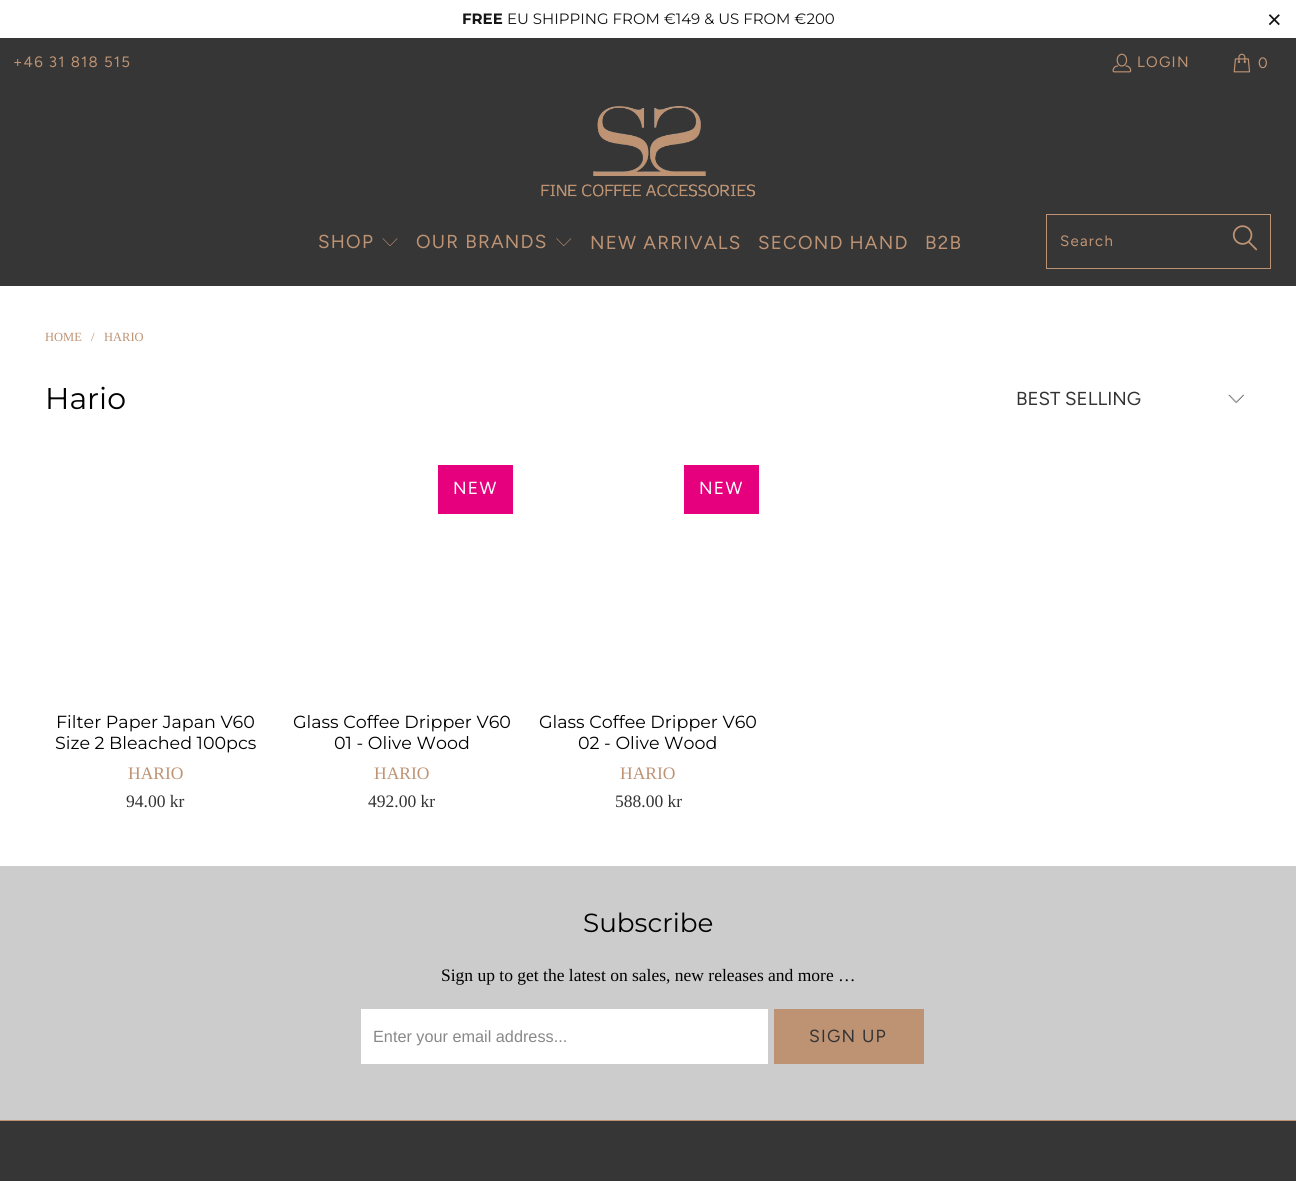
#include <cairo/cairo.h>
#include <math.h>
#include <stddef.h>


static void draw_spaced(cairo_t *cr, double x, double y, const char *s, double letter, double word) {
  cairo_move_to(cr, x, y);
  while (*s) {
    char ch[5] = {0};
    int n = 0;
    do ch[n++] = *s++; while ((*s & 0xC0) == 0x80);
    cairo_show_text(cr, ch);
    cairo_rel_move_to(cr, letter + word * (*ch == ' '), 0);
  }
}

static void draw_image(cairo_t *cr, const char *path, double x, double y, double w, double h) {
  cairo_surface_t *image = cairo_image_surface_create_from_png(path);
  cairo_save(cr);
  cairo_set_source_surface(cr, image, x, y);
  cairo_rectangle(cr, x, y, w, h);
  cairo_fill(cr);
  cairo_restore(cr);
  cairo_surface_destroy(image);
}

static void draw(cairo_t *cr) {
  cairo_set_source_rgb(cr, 1, 1, 1);
  cairo_paint(cr);
  cairo_set_source_rgb(cr, 54 / 255.0, 54 / 255.0, 54 / 255.0);
  cairo_rectangle(cr, 0, 38, 1296, 248);
  cairo_fill(cr);
  draw_image(cr, "images/1.png", 1112, 53, 20, 20);
  draw_image(cr, "images/2.png", 1233, 53, 18, 20);
  draw_image(cr, "images/3.png", 541, 106, 215, 91);
  draw_image(cr, "images/4.png", 382, 238, 16, 8);
  draw_image(cr, "images/5.png", 556, 238, 16, 9);
  cairo_rectangle(cr, 1046.5, 214.5, 224, 54);
  cairo_set_source_rgb(cr, 190 / 255.0, 147 / 255.0, 116 / 255.0);
  cairo_set_line_width(cr, 1);
  cairo_stroke(cr);
  draw_image(cr, "images/6.png", 1232, 225, 26, 26);
  draw_image(cr, "images/7.png", 1228, 394, 16, 10);
  cairo_set_source_rgb(cr, 230 / 255.0, 0, 126 / 255.0);
  cairo_rectangle(cr, 438, 465, 75, 49);
  cairo_fill(cr);
  cairo_rectangle(cr, 684, 465, 75, 49);
  cairo_fill(cr);
  cairo_set_source_rgb(cr, 204 / 255.0, 204 / 255.0, 204 / 255.0);
  cairo_rectangle(cr, 0, 866, 1296, 254);
  cairo_fill(cr);
  cairo_set_source_rgb(cr, 1, 1, 1);
  cairo_rectangle(cr, 361, 1009, 407, 55);
  cairo_fill(cr);
  cairo_set_source_rgb(cr, 190 / 255.0, 147 / 255.0, 116 / 255.0);
  cairo_rectangle(cr, 774, 1009, 150, 55);
  cairo_fill(cr);
  cairo_set_source_rgb(cr, 54 / 255.0, 54 / 255.0, 54 / 255.0);
  cairo_rectangle(cr, 0, 1121, 1296, 60);
  cairo_fill(cr);
  cairo_set_source_rgb(cr, 190 / 255.0, 147 / 255.0, 116 / 255.0);
  cairo_rectangle(cr, 0, 1120, 1296, 1);
  cairo_fill(cr);
  cairo_select_font_face(cr, "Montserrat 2 Thin", CAIRO_FONT_SLANT_NORMAL, CAIRO_FONT_WEIGHT_NORMAL);
  cairo_set_font_size(cr, 15);
  cairo_set_source_rgb(cr, 21 / 255.0, 21 / 255.0, 21 / 255.0);
  cairo_move_to(cr, 462, 24);
  cairo_show_text(cr, "FREE");
  cairo_select_font_face(cr, "Montserrat Thin", CAIRO_FONT_SLANT_NORMAL, CAIRO_FONT_WEIGHT_NORMAL);
  cairo_move_to(cr, 507, 24);
  cairo_show_text(cr, "EU SHIPPING FROM €149 & US FROM €200");
  cairo_select_font_face(cr, "Liberation Sans", CAIRO_FONT_SLANT_NORMAL, CAIRO_FONT_WEIGHT_NORMAL);
  cairo_set_font_size(cr, 25);
  cairo_move_to(cr, 1267, 28);
  cairo_show_text(cr, "×");
  cairo_select_font_face(cr, "Figtree", CAIRO_FONT_SLANT_NORMAL, CAIRO_FONT_WEIGHT_NORMAL);
  cairo_set_font_size(cr, 15);
  cairo_set_source_rgb(cr, 190 / 255.0, 147 / 255.0, 116 / 255.0);
  draw_spaced(cr, 13, 67, "+46 31 818 515", 1.25, 0);
  draw_spaced(cr, 1137, 67, "LOGIN", 1.25, 0);
  draw_spaced(cr, 1258, 68, "0", 1.25, 0);
  cairo_set_font_size(cr, 18.75);
  draw_spaced(cr, 318, 248, "SHOP", 1.25, 0);
  draw_spaced(cr, 416, 248, "OUR BRANDS", 1.25, 0);
  draw_spaced(cr, 590, 249, "NEW ARRIVALS", 1.25, 0);
  draw_spaced(cr, 758, 249, "SECOND HAND", 1.25, 0);
  draw_spaced(cr, 925, 249, "B2B", 1.25, 0);
  cairo_set_font_size(cr, 15);
  draw_spaced(cr, 1060, 246, "Search", 1.25, 0);
  cairo_select_font_face(cr, "Liberation Serif", CAIRO_FONT_SLANT_NORMAL, CAIRO_FONT_WEIGHT_NORMAL);
  cairo_set_font_size(cr, 12.5);
  cairo_move_to(cr, 45, 341);
  cairo_show_text(cr, "HOME");
  cairo_move_to(cr, 91, 341);
  cairo_show_text(cr, "/");
  cairo_move_to(cr, 104, 341);
  cairo_show_text(cr, "HARIO");
  cairo_select_font_face(cr, "Montserrat Thin", CAIRO_FONT_SLANT_NORMAL, CAIRO_FONT_WEIGHT_NORMAL);
  cairo_set_font_size(cr, 30);
  cairo_set_source_rgb(cr, 0, 0, 0);
  cairo_move_to(cr, 45, 409);
  cairo_show_text(cr, "Hario");
  cairo_select_font_face(cr, "Figtree", CAIRO_FONT_SLANT_NORMAL, CAIRO_FONT_WEIGHT_NORMAL);
  cairo_set_font_size(cr, 18.75);
  cairo_set_source_rgb(cr, 51 / 255.0, 51 / 255.0, 51 / 255.0);
  cairo_move_to(cr, 1016, 405);
  cairo_show_text(cr, "BEST SELLING");
  cairo_select_font_face(cr, "Montserrat Thin", CAIRO_FONT_SLANT_NORMAL, CAIRO_FONT_WEIGHT_NORMAL);
  cairo_set_font_size(cr, 17.5);
  cairo_set_source_rgb(cr, 0, 0, 0);
  cairo_move_to(cr, 56, 728);
  cairo_show_text(cr, "Filter Paper Japan V60");
  cairo_move_to(cr, 55, 749);
  cairo_show_text(cr, "Size 2 Bleached 100pcs");
  cairo_select_font_face(cr, "Liberation Serif", CAIRO_FONT_SLANT_NORMAL, CAIRO_FONT_WEIGHT_NORMAL);
  cairo_set_source_rgb(cr, 190 / 255.0, 147 / 255.0, 116 / 255.0);
  cairo_move_to(cr, 128, 779);
  cairo_show_text(cr, "HARIO");
  cairo_set_source_rgb(cr, 51 / 255.0, 51 / 255.0, 51 / 255.0);
  cairo_move_to(cr, 126, 807);
  cairo_show_text(cr, "94.00 kr");
  cairo_select_font_face(cr, "Figtree", CAIRO_FONT_SLANT_NORMAL, CAIRO_FONT_WEIGHT_NORMAL);
  cairo_set_source_rgb(cr, 1, 1, 1);
  draw_spaced(cr, 453, 494, "NEW", 1.25, 0);
  cairo_select_font_face(cr, "Montserrat Thin", CAIRO_FONT_SLANT_NORMAL, CAIRO_FONT_WEIGHT_NORMAL);
  cairo_set_source_rgb(cr, 0, 0, 0);
  cairo_move_to(cr, 293, 728);
  cairo_show_text(cr, "Glass Coffee Dripper V60");
  cairo_move_to(cr, 334, 749);
  cairo_show_text(cr, "01 - Olive Wood");
  cairo_select_font_face(cr, "Liberation Serif", CAIRO_FONT_SLANT_NORMAL, CAIRO_FONT_WEIGHT_NORMAL);
  cairo_set_source_rgb(cr, 190 / 255.0, 147 / 255.0, 116 / 255.0);
  cairo_move_to(cr, 374, 779);
  cairo_show_text(cr, "HARIO");
  cairo_set_source_rgb(cr, 51 / 255.0, 51 / 255.0, 51 / 255.0);
  cairo_move_to(cr, 368, 807);
  cairo_show_text(cr, "492.00 kr");
  cairo_select_font_face(cr, "Figtree", CAIRO_FONT_SLANT_NORMAL, CAIRO_FONT_WEIGHT_NORMAL);
  cairo_set_source_rgb(cr, 1, 1, 1);
  draw_spaced(cr, 699, 494, "NEW", 1.25, 0);
  cairo_select_font_face(cr, "Montserrat Thin", CAIRO_FONT_SLANT_NORMAL, CAIRO_FONT_WEIGHT_NORMAL);
  cairo_set_source_rgb(cr, 0, 0, 0);
  cairo_move_to(cr, 539, 728);
  cairo_show_text(cr, "Glass Coffee Dripper V60");
  cairo_move_to(cr, 578, 749);
  cairo_show_text(cr, "02 - Olive Wood");
  cairo_select_font_face(cr, "Liberation Serif", CAIRO_FONT_SLANT_NORMAL, CAIRO_FONT_WEIGHT_NORMAL);
  cairo_set_source_rgb(cr, 190 / 255.0, 147 / 255.0, 116 / 255.0);
  cairo_move_to(cr, 620, 779);
  cairo_show_text(cr, "HARIO");
  cairo_set_source_rgb(cr, 51 / 255.0, 51 / 255.0, 51 / 255.0);
  cairo_move_to(cr, 615, 807);
  cairo_show_text(cr, "588.00 kr");
  cairo_select_font_face(cr, "Montserrat Thin", CAIRO_FONT_SLANT_NORMAL, CAIRO_FONT_WEIGHT_NORMAL);
  cairo_set_font_size(cr, 26.25);
  cairo_set_source_rgb(cr, 0, 0, 0);
  cairo_move_to(cr, 583, 932);
  cairo_show_text(cr, "Subscribe");
  cairo_select_font_face(cr, "Liberation Serif", CAIRO_FONT_SLANT_NORMAL, CAIRO_FONT_WEIGHT_NORMAL);
  cairo_set_font_size(cr, 17.5);
  cairo_move_to(cr, 441, 981);
  cairo_show_text(cr, "Sign up to get the latest on sales, new releases and more …");
  cairo_select_font_face(cr, "Liberation Sans", CAIRO_FONT_SLANT_NORMAL, CAIRO_FONT_WEIGHT_NORMAL);
  cairo_set_font_size(cr, 16.25);
  cairo_set_source_rgb(cr, 136 / 255.0, 136 / 255.0, 136 / 255.0);
  cairo_move_to(cr, 373, 1042);
  cairo_show_text(cr, "Enter your email address...");
  cairo_select_font_face(cr, "Figtree", CAIRO_FONT_SLANT_NORMAL, CAIRO_FONT_WEIGHT_NORMAL);
  cairo_set_font_size(cr, 17.5);
  cairo_set_source_rgb(cr, 51 / 255.0, 51 / 255.0, 51 / 255.0);
  draw_spaced(cr, 809, 1042, "SIGN UP", 1.25, 0);
}

int main(void) {
  cairo_surface_t *surface = cairo_image_surface_create(CAIRO_FORMAT_RGB24, 1296, 1181);
  cairo_t *cr = cairo_create(surface);
  cairo_font_options_t *options = cairo_font_options_create();
  cairo_font_options_set_hint_metrics(options, CAIRO_HINT_METRICS_OFF);
  cairo_font_options_set_hint_style(options, CAIRO_HINT_STYLE_NONE);
  cairo_set_font_options(cr, options);
  cairo_set_miter_limit(cr, 4);
  draw(cr);
  cairo_surface_write_to_png(surface, "out.png");
  cairo_font_options_destroy(options);
  cairo_destroy(cr);
  cairo_surface_destroy(surface);
  return 0;
}
